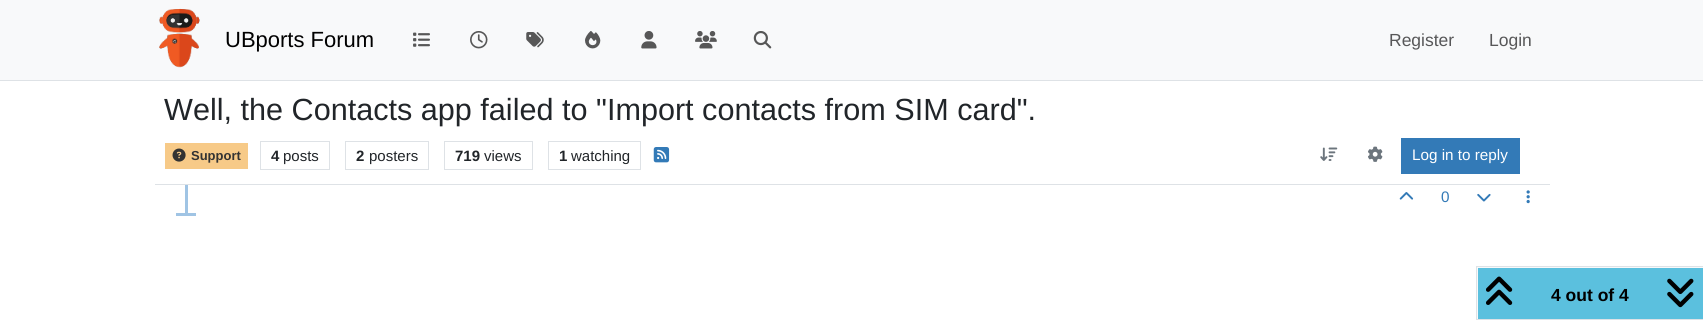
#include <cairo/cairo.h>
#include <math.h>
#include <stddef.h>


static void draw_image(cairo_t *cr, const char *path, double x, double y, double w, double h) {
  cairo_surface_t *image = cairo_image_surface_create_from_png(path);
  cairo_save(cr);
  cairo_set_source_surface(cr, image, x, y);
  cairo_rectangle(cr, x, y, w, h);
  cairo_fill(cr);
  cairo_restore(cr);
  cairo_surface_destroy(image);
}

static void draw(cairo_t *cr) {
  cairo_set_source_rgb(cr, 1, 1, 1);
  cairo_paint(cr);
  cairo_set_source_rgb(cr, 248 / 255.0, 249 / 255.0, 250 / 255.0);
  cairo_rectangle(cr, 0, 0, 1703, 80);
  cairo_fill(cr);
  cairo_set_source_rgb(cr, 222 / 255.0, 226 / 255.0, 230 / 255.0);
  cairo_rectangle(cr, 0, 80, 1703, 1);
  cairo_fill(cr);
  draw_image(cr, "images/1.png", 159, 8, 41, 60);
  draw_image(cr, "images/2.png", 413, 32, 17, 15);
  draw_image(cr, "images/3.png", 470, 31, 18, 18);
  draw_image(cr, "images/4.png", 526, 32, 18, 16);
  draw_image(cr, "images/5.png", 585, 31, 16, 18);
  draw_image(cr, "images/6.png", 641, 31, 16, 18);
  draw_image(cr, "images/7.png", 695, 31, 22, 18);
  draw_image(cr, "images/8.png", 753, 31, 19, 18);
  cairo_rectangle(cr, 155, 184, 1395, 1);
  cairo_fill(cr);
  cairo_set_source_rgb(cr, 247 / 255.0, 202 / 255.0, 136 / 255.0);
  cairo_rectangle(cr, 165, 143, 83, 26);
  cairo_fill(cr);
  draw_image(cr, "images/9.png", 172, 148, 14, 14);
  cairo_rectangle(cr, 260.5, 141.5, 69, 28);
  cairo_set_source_rgb(cr, 222 / 255.0, 226 / 255.0, 230 / 255.0);
  cairo_set_line_width(cr, 1);
  cairo_stroke(cr);
  cairo_rectangle(cr, 345.5, 141.5, 83, 28);
  cairo_stroke(cr);
  cairo_rectangle(cr, 444.5, 141.5, 88, 28);
  cairo_stroke(cr);
  cairo_rectangle(cr, 548.5, 141.5, 92, 28);
  cairo_stroke(cr);
  draw_image(cr, "images/10.png", 653, 147, 17, 16);
  draw_image(cr, "images/11.png", 1320, 147, 18, 14);
  draw_image(cr, "images/12.png", 1368, 146, 15, 16);
  cairo_set_source_rgb(cr, 51 / 255.0, 122 / 255.0, 183 / 255.0);
  cairo_rectangle(cr, 1401, 138, 119, 36);
  cairo_fill(cr);
  cairo_set_source_rgb(cr, 160 / 255.0, 196 / 255.0, 228 / 255.0);
  cairo_rectangle(cr, 185, 185, 3, 30);
  cairo_fill(cr);
  draw_image(cr, "images/13.png", 1399, 192, 15, 8);
  draw_image(cr, "images/14.png", 1477, 193, 14, 9);
  draw_image(cr, "images/15.png", 1526, 190, 4, 14);
  cairo_rectangle(cr, 176, 213, 20, 3);
  cairo_fill(cr);
  cairo_set_source_rgb(cr, 248 / 255.0, 249 / 255.0, 250 / 255.0);
  cairo_rectangle(cr, 1476.5, 266.5, 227, 53);
  cairo_fill_preserve(cr);
  cairo_set_source_rgb(cr, 222 / 255.0, 226 / 255.0, 230 / 255.0);
  cairo_stroke(cr);
  cairo_set_source_rgb(cr, 91 / 255.0, 192 / 255.0, 222 / 255.0);
  cairo_rectangle(cr, 1478, 268, 225, 51);
  cairo_fill(cr);
  draw_image(cr, "images/16.png", 1486, 276, 27, 29);
  draw_image(cr, "images/17.png", 1667, 278, 27, 30);
  cairo_select_font_face(cr, "Liberation Sans", CAIRO_FONT_SLANT_NORMAL, CAIRO_FONT_WEIGHT_NORMAL);
  cairo_set_font_size(cr, 22);
  cairo_set_source_rgb(cr, 0, 0, 0);
  cairo_move_to(cr, 225, 47);
  cairo_show_text(cr, "UBports Forum");
  cairo_set_font_size(cr, 17.5);
  cairo_set_source_rgb(cr, 87 / 255.0, 87 / 255.0, 88 / 255.0);
  cairo_move_to(cr, 1389, 46);
  cairo_show_text(cr, "Register");
  cairo_move_to(cr, 1489, 46);
  cairo_show_text(cr, "Login");
  cairo_set_font_size(cr, 30.6);
  cairo_set_source_rgb(cr, 33 / 255.0, 37 / 255.0, 41 / 255.0);
  cairo_move_to(cr, 164, 120);
  cairo_show_text(cr, "Well, the Contacts app failed to \"Import contacts from SIM card\".");
  cairo_select_font_face(cr, "Liberation Sans", CAIRO_FONT_SLANT_NORMAL, CAIRO_FONT_WEIGHT_BOLD);
  cairo_set_font_size(cr, 13);
  cairo_set_source_rgb(cr, 51 / 255.0, 51 / 255.0, 51 / 255.0);
  cairo_move_to(cr, 191, 160);
  cairo_show_text(cr, "Support");
  cairo_set_font_size(cr, 15);
  cairo_set_source_rgb(cr, 33 / 255.0, 37 / 255.0, 41 / 255.0);
  cairo_move_to(cr, 271, 161);
  cairo_show_text(cr, "4");
  cairo_select_font_face(cr, "Liberation Sans", CAIRO_FONT_SLANT_NORMAL, CAIRO_FONT_WEIGHT_NORMAL);
  cairo_move_to(cr, 283, 161);
  cairo_show_text(cr, "posts");
  cairo_select_font_face(cr, "Liberation Sans", CAIRO_FONT_SLANT_NORMAL, CAIRO_FONT_WEIGHT_BOLD);
  cairo_move_to(cr, 356, 161);
  cairo_show_text(cr, "2");
  cairo_select_font_face(cr, "Liberation Sans", CAIRO_FONT_SLANT_NORMAL, CAIRO_FONT_WEIGHT_NORMAL);
  cairo_move_to(cr, 369, 161);
  cairo_show_text(cr, "posters");
  cairo_select_font_face(cr, "Liberation Sans", CAIRO_FONT_SLANT_NORMAL, CAIRO_FONT_WEIGHT_BOLD);
  cairo_move_to(cr, 455, 161);
  cairo_show_text(cr, "719");
  cairo_select_font_face(cr, "Liberation Sans", CAIRO_FONT_SLANT_NORMAL, CAIRO_FONT_WEIGHT_NORMAL);
  cairo_move_to(cr, 484, 161);
  cairo_show_text(cr, "views");
  cairo_select_font_face(cr, "Liberation Sans", CAIRO_FONT_SLANT_NORMAL, CAIRO_FONT_WEIGHT_BOLD);
  cairo_move_to(cr, 559, 161);
  cairo_show_text(cr, "1");
  cairo_select_font_face(cr, "Liberation Sans", CAIRO_FONT_SLANT_NORMAL, CAIRO_FONT_WEIGHT_NORMAL);
  cairo_move_to(cr, 571, 161);
  cairo_show_text(cr, "watching");
  cairo_set_font_size(cr, 15.25);
  cairo_set_source_rgb(cr, 1, 1, 1);
  cairo_move_to(cr, 1412, 160);
  cairo_show_text(cr, "Log in to reply");
  cairo_set_source_rgb(cr, 51 / 255.0, 122 / 255.0, 183 / 255.0);
  cairo_move_to(cr, 1441, 202);
  cairo_show_text(cr, "0");
  cairo_select_font_face(cr, "Liberation Sans", CAIRO_FONT_SLANT_NORMAL, CAIRO_FONT_WEIGHT_BOLD);
  cairo_set_font_size(cr, 17.5);
  cairo_set_source_rgb(cr, 0, 0, 0);
  cairo_move_to(cr, 1551, 301);
  cairo_show_text(cr, "4 out of 4");
}

int main(void) {
  cairo_surface_t *surface = cairo_image_surface_create(CAIRO_FORMAT_RGB24, 1703, 320);
  cairo_t *cr = cairo_create(surface);
  cairo_font_options_t *options = cairo_font_options_create();
  cairo_font_options_set_hint_metrics(options, CAIRO_HINT_METRICS_OFF);
  cairo_font_options_set_hint_style(options, CAIRO_HINT_STYLE_NONE);
  cairo_set_font_options(cr, options);
  cairo_set_miter_limit(cr, 4);
  draw(cr);
  cairo_surface_write_to_png(surface, "out.png");
  cairo_font_options_destroy(options);
  cairo_destroy(cr);
  cairo_surface_destroy(surface);
  return 0;
}
